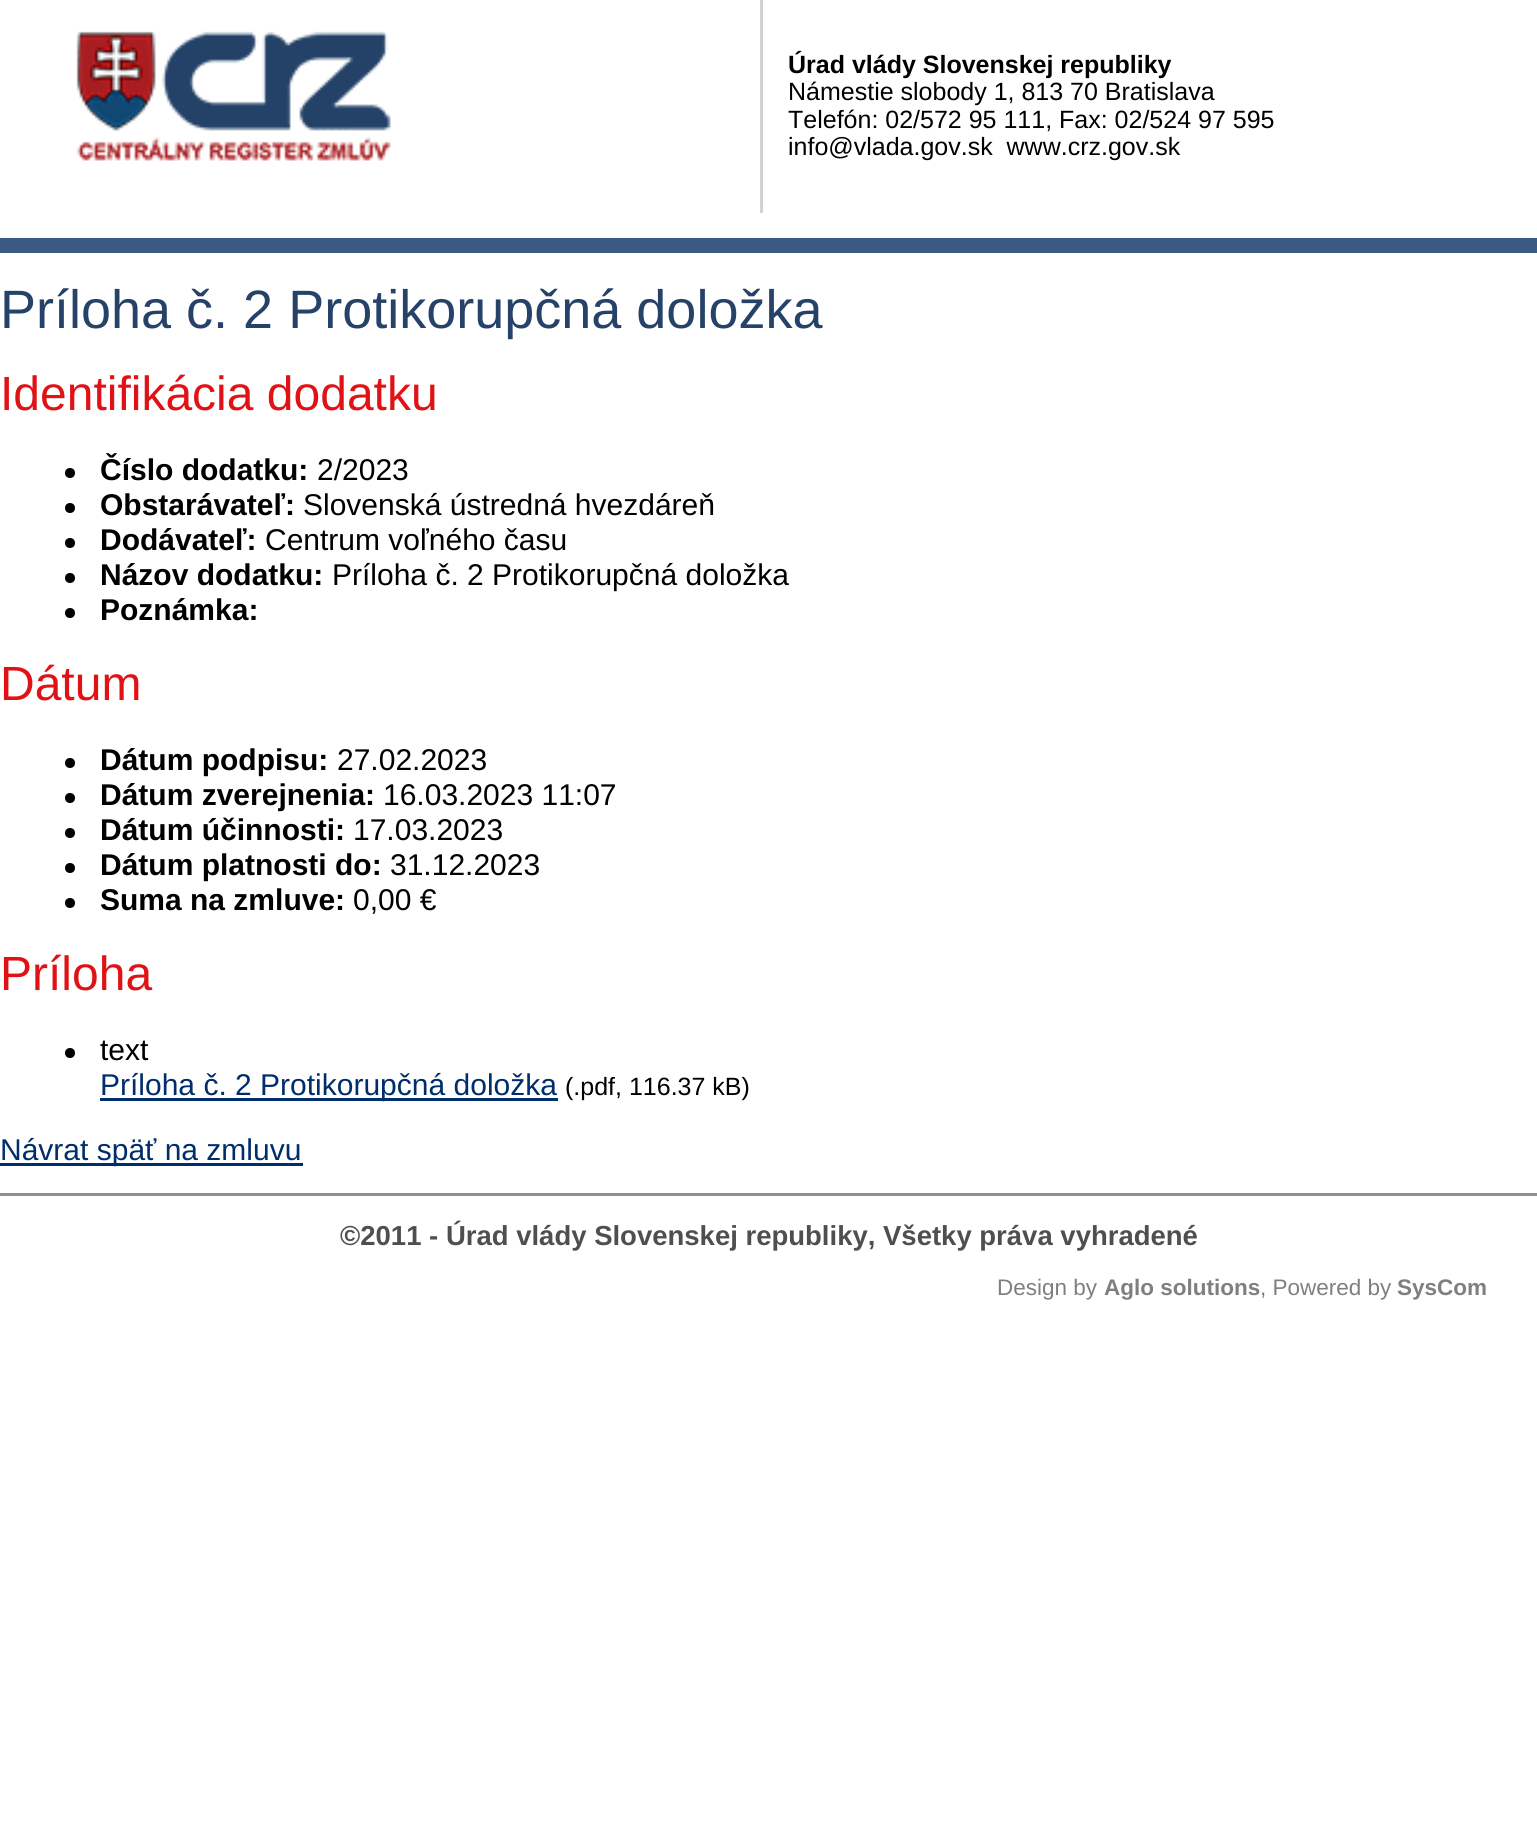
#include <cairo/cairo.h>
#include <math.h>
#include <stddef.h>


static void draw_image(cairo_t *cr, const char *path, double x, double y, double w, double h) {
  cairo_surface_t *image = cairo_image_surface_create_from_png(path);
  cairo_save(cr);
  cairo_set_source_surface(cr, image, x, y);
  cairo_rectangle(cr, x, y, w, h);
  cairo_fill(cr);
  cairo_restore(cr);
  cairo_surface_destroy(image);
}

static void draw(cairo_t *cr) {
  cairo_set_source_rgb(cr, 1, 1, 1);
  cairo_paint(cr);
  cairo_set_source_rgb(cr, 58 / 255.0, 90 / 255.0, 130 / 255.0);
  cairo_rectangle(cr, 0, 238, 1537, 15);
  cairo_fill(cr);
  draw_image(cr, "images/1.png", 76, 31, 315, 130);
  cairo_set_source_rgb(cr, 211 / 255.0, 210 / 255.0, 210 / 255.0);
  cairo_rectangle(cr, 760, 0, 3, 213);
  cairo_fill(cr);
  cairo_set_source_rgb(cr, 0, 0, 0);
  cairo_arc(cr, 70, 473, 5, 0, 2 * M_PI);
  cairo_fill(cr);
  cairo_arc(cr, 70, 508, 5, 0, 2 * M_PI);
  cairo_fill(cr);
  cairo_arc(cr, 70, 543, 5, 0, 2 * M_PI);
  cairo_fill(cr);
  cairo_arc(cr, 70, 578, 5, 0, 2 * M_PI);
  cairo_fill(cr);
  cairo_arc(cr, 70, 613, 5, 0, 2 * M_PI);
  cairo_fill(cr);
  cairo_arc(cr, 70, 763, 5, 0, 2 * M_PI);
  cairo_fill(cr);
  cairo_arc(cr, 70, 798, 5, 0, 2 * M_PI);
  cairo_fill(cr);
  cairo_arc(cr, 70, 833, 5, 0, 2 * M_PI);
  cairo_fill(cr);
  cairo_arc(cr, 70, 868, 5, 0, 2 * M_PI);
  cairo_fill(cr);
  cairo_arc(cr, 70, 903, 5, 0, 2 * M_PI);
  cairo_fill(cr);
  cairo_arc(cr, 70, 1053, 5, 0, 2 * M_PI);
  cairo_fill(cr);
  cairo_set_source_rgb(cr, 0, 45 / 255.0, 107 / 255.0);
  cairo_rectangle(cr, 100, 1098, 458, 3);
  cairo_fill(cr);
  cairo_rectangle(cr, 0, 1163, 303, 3);
  cairo_fill(cr);
  cairo_set_source_rgb(cr, 143 / 255.0, 143 / 255.0, 143 / 255.0);
  cairo_rectangle(cr, 0, 1193, 1537, 3);
  cairo_fill(cr);
  cairo_select_font_face(cr, "Liberation Sans", CAIRO_FONT_SLANT_NORMAL, CAIRO_FONT_WEIGHT_BOLD);
  cairo_set_font_size(cr, 25);
  cairo_set_source_rgb(cr, 0, 0, 0);
  cairo_move_to(cr, 788, 73);
  cairo_show_text(cr, "Úrad vlády Slovenskej republiky");
  cairo_select_font_face(cr, "Liberation Sans", CAIRO_FONT_SLANT_NORMAL, CAIRO_FONT_WEIGHT_NORMAL);
  cairo_move_to(cr, 788, 100);
  cairo_show_text(cr, "Námestie slobody 1, 813 70 Bratislava");
  cairo_move_to(cr, 788, 128);
  cairo_show_text(cr, "Telefón: 02/572 95 111, Fax: 02/524 97 595");
  cairo_move_to(cr, 788, 155);
  cairo_show_text(cr, "info@vlada.gov.sk  www.crz.gov.sk");
  cairo_set_font_size(cr, 54);
  cairo_set_source_rgb(cr, 38 / 255.0, 66 / 255.0, 104 / 255.0);
  cairo_move_to(cr, 0, 328);
  cairo_show_text(cr, "Príloha č. 2 Protikorupčná doložka");
  cairo_set_font_size(cr, 48);
  cairo_set_source_rgb(cr, 225 / 255.0, 18 / 255.0, 22 / 255.0);
  cairo_move_to(cr, 0, 410);
  cairo_show_text(cr, "Identifikácia dodatku");
  cairo_select_font_face(cr, "Liberation Sans", CAIRO_FONT_SLANT_NORMAL, CAIRO_FONT_WEIGHT_BOLD);
  cairo_set_font_size(cr, 30);
  cairo_set_source_rgb(cr, 0, 0, 0);
  cairo_move_to(cr, 100, 480);
  cairo_show_text(cr, "Číslo dodatku:");
  cairo_select_font_face(cr, "Liberation Sans", CAIRO_FONT_SLANT_NORMAL, CAIRO_FONT_WEIGHT_NORMAL);
  cairo_move_to(cr, 317, 480);
  cairo_show_text(cr, "2/2023");
  cairo_select_font_face(cr, "Liberation Sans", CAIRO_FONT_SLANT_NORMAL, CAIRO_FONT_WEIGHT_BOLD);
  cairo_move_to(cr, 100, 515);
  cairo_show_text(cr, "Obstarávateľ:");
  cairo_select_font_face(cr, "Liberation Sans", CAIRO_FONT_SLANT_NORMAL, CAIRO_FONT_WEIGHT_NORMAL);
  cairo_move_to(cr, 303, 515);
  cairo_show_text(cr, "Slovenská ústredná hvezdáreň");
  cairo_select_font_face(cr, "Liberation Sans", CAIRO_FONT_SLANT_NORMAL, CAIRO_FONT_WEIGHT_BOLD);
  cairo_move_to(cr, 100, 550);
  cairo_show_text(cr, "Dodávateľ:");
  cairo_select_font_face(cr, "Liberation Sans", CAIRO_FONT_SLANT_NORMAL, CAIRO_FONT_WEIGHT_NORMAL);
  cairo_move_to(cr, 265, 550);
  cairo_show_text(cr, "Centrum voľného času");
  cairo_select_font_face(cr, "Liberation Sans", CAIRO_FONT_SLANT_NORMAL, CAIRO_FONT_WEIGHT_BOLD);
  cairo_move_to(cr, 100, 585);
  cairo_show_text(cr, "Názov dodatku:");
  cairo_select_font_face(cr, "Liberation Sans", CAIRO_FONT_SLANT_NORMAL, CAIRO_FONT_WEIGHT_NORMAL);
  cairo_move_to(cr, 332, 585);
  cairo_show_text(cr, "Príloha č. 2 Protikorupčná doložka");
  cairo_select_font_face(cr, "Liberation Sans", CAIRO_FONT_SLANT_NORMAL, CAIRO_FONT_WEIGHT_BOLD);
  cairo_move_to(cr, 100, 620);
  cairo_show_text(cr, "Poznámka:");
  cairo_select_font_face(cr, "Liberation Sans", CAIRO_FONT_SLANT_NORMAL, CAIRO_FONT_WEIGHT_NORMAL);
  cairo_set_font_size(cr, 48);
  cairo_set_source_rgb(cr, 225 / 255.0, 18 / 255.0, 22 / 255.0);
  cairo_move_to(cr, 0, 700);
  cairo_show_text(cr, "Dátum");
  cairo_select_font_face(cr, "Liberation Sans", CAIRO_FONT_SLANT_NORMAL, CAIRO_FONT_WEIGHT_BOLD);
  cairo_set_font_size(cr, 30);
  cairo_set_source_rgb(cr, 0, 0, 0);
  cairo_move_to(cr, 100, 770);
  cairo_show_text(cr, "Dátum podpisu:");
  cairo_select_font_face(cr, "Liberation Sans", CAIRO_FONT_SLANT_NORMAL, CAIRO_FONT_WEIGHT_NORMAL);
  cairo_move_to(cr, 337, 770);
  cairo_show_text(cr, "27.02.2023");
  cairo_select_font_face(cr, "Liberation Sans", CAIRO_FONT_SLANT_NORMAL, CAIRO_FONT_WEIGHT_BOLD);
  cairo_move_to(cr, 100, 805);
  cairo_show_text(cr, "Dátum zverejnenia:");
  cairo_select_font_face(cr, "Liberation Sans", CAIRO_FONT_SLANT_NORMAL, CAIRO_FONT_WEIGHT_NORMAL);
  cairo_move_to(cr, 383, 805);
  cairo_show_text(cr, "16.03.2023 11:07");
  cairo_select_font_face(cr, "Liberation Sans", CAIRO_FONT_SLANT_NORMAL, CAIRO_FONT_WEIGHT_BOLD);
  cairo_move_to(cr, 100, 840);
  cairo_show_text(cr, "Dátum účinnosti:");
  cairo_select_font_face(cr, "Liberation Sans", CAIRO_FONT_SLANT_NORMAL, CAIRO_FONT_WEIGHT_NORMAL);
  cairo_move_to(cr, 353, 840);
  cairo_show_text(cr, "17.03.2023");
  cairo_select_font_face(cr, "Liberation Sans", CAIRO_FONT_SLANT_NORMAL, CAIRO_FONT_WEIGHT_BOLD);
  cairo_move_to(cr, 100, 875);
  cairo_show_text(cr, "Dátum platnosti do:");
  cairo_select_font_face(cr, "Liberation Sans", CAIRO_FONT_SLANT_NORMAL, CAIRO_FONT_WEIGHT_NORMAL);
  cairo_move_to(cr, 390, 875);
  cairo_show_text(cr, "31.12.2023");
  cairo_select_font_face(cr, "Liberation Sans", CAIRO_FONT_SLANT_NORMAL, CAIRO_FONT_WEIGHT_BOLD);
  cairo_move_to(cr, 100, 910);
  cairo_show_text(cr, "Suma na zmluve:");
  cairo_select_font_face(cr, "Liberation Sans", CAIRO_FONT_SLANT_NORMAL, CAIRO_FONT_WEIGHT_NORMAL);
  cairo_move_to(cr, 353, 910);
  cairo_show_text(cr, "0,00 €");
  cairo_set_font_size(cr, 48);
  cairo_set_source_rgb(cr, 225 / 255.0, 18 / 255.0, 22 / 255.0);
  cairo_move_to(cr, 0, 990);
  cairo_show_text(cr, "Príloha");
  cairo_set_font_size(cr, 30);
  cairo_set_source_rgb(cr, 0, 0, 0);
  cairo_move_to(cr, 100, 1060);
  cairo_show_text(cr, "text");
  cairo_set_source_rgb(cr, 0, 45 / 255.0, 107 / 255.0);
  cairo_move_to(cr, 100, 1095);
  cairo_show_text(cr, "Príloha č. 2 Protikorupčná doložka");
  cairo_set_font_size(cr, 25);
  cairo_set_source_rgb(cr, 0, 0, 0);
  cairo_move_to(cr, 565, 1095);
  cairo_show_text(cr, "(.pdf, 116.37 kB)");
  cairo_set_font_size(cr, 30);
  cairo_set_source_rgb(cr, 0, 45 / 255.0, 107 / 255.0);
  cairo_move_to(cr, 0, 1160);
  cairo_show_text(cr, "Návrat späť na zmluvu");
  cairo_select_font_face(cr, "Liberation Sans", CAIRO_FONT_SLANT_NORMAL, CAIRO_FONT_WEIGHT_BOLD);
  cairo_set_font_size(cr, 27.5);
  cairo_set_source_rgb(cr, 79 / 255.0, 79 / 255.0, 79 / 255.0);
  cairo_move_to(cr, 340, 1245);
  cairo_show_text(cr, "©2011 - Úrad vlády Slovenskej republiky, Všetky práva vyhradené");
  cairo_select_font_face(cr, "Liberation Sans", CAIRO_FONT_SLANT_NORMAL, CAIRO_FONT_WEIGHT_NORMAL);
  cairo_set_font_size(cr, 22.5);
  cairo_set_source_rgb(cr, 127 / 255.0, 127 / 255.0, 127 / 255.0);
  cairo_move_to(cr, 997, 1295);
  cairo_show_text(cr, "Design by");
  cairo_select_font_face(cr, "Liberation Sans", CAIRO_FONT_SLANT_NORMAL, CAIRO_FONT_WEIGHT_BOLD);
  cairo_move_to(cr, 1104, 1295);
  cairo_show_text(cr, "Aglo solutions");
  cairo_select_font_face(cr, "Liberation Sans", CAIRO_FONT_SLANT_NORMAL, CAIRO_FONT_WEIGHT_NORMAL);
  cairo_move_to(cr, 1260, 1295);
  cairo_show_text(cr, ", Powered by");
  cairo_select_font_face(cr, "Liberation Sans", CAIRO_FONT_SLANT_NORMAL, CAIRO_FONT_WEIGHT_BOLD);
  cairo_move_to(cr, 1397, 1295);
  cairo_show_text(cr, "SysCom");
}

int main(void) {
  cairo_surface_t *surface = cairo_image_surface_create(CAIRO_FORMAT_RGB24, 1537, 1830);
  cairo_t *cr = cairo_create(surface);
  cairo_font_options_t *options = cairo_font_options_create();
  cairo_font_options_set_hint_metrics(options, CAIRO_HINT_METRICS_OFF);
  cairo_font_options_set_hint_style(options, CAIRO_HINT_STYLE_NONE);
  cairo_set_font_options(cr, options);
  cairo_set_miter_limit(cr, 4);
  draw(cr);
  cairo_surface_write_to_png(surface, "out.png");
  cairo_font_options_destroy(options);
  cairo_destroy(cr);
  cairo_surface_destroy(surface);
  return 0;
}
